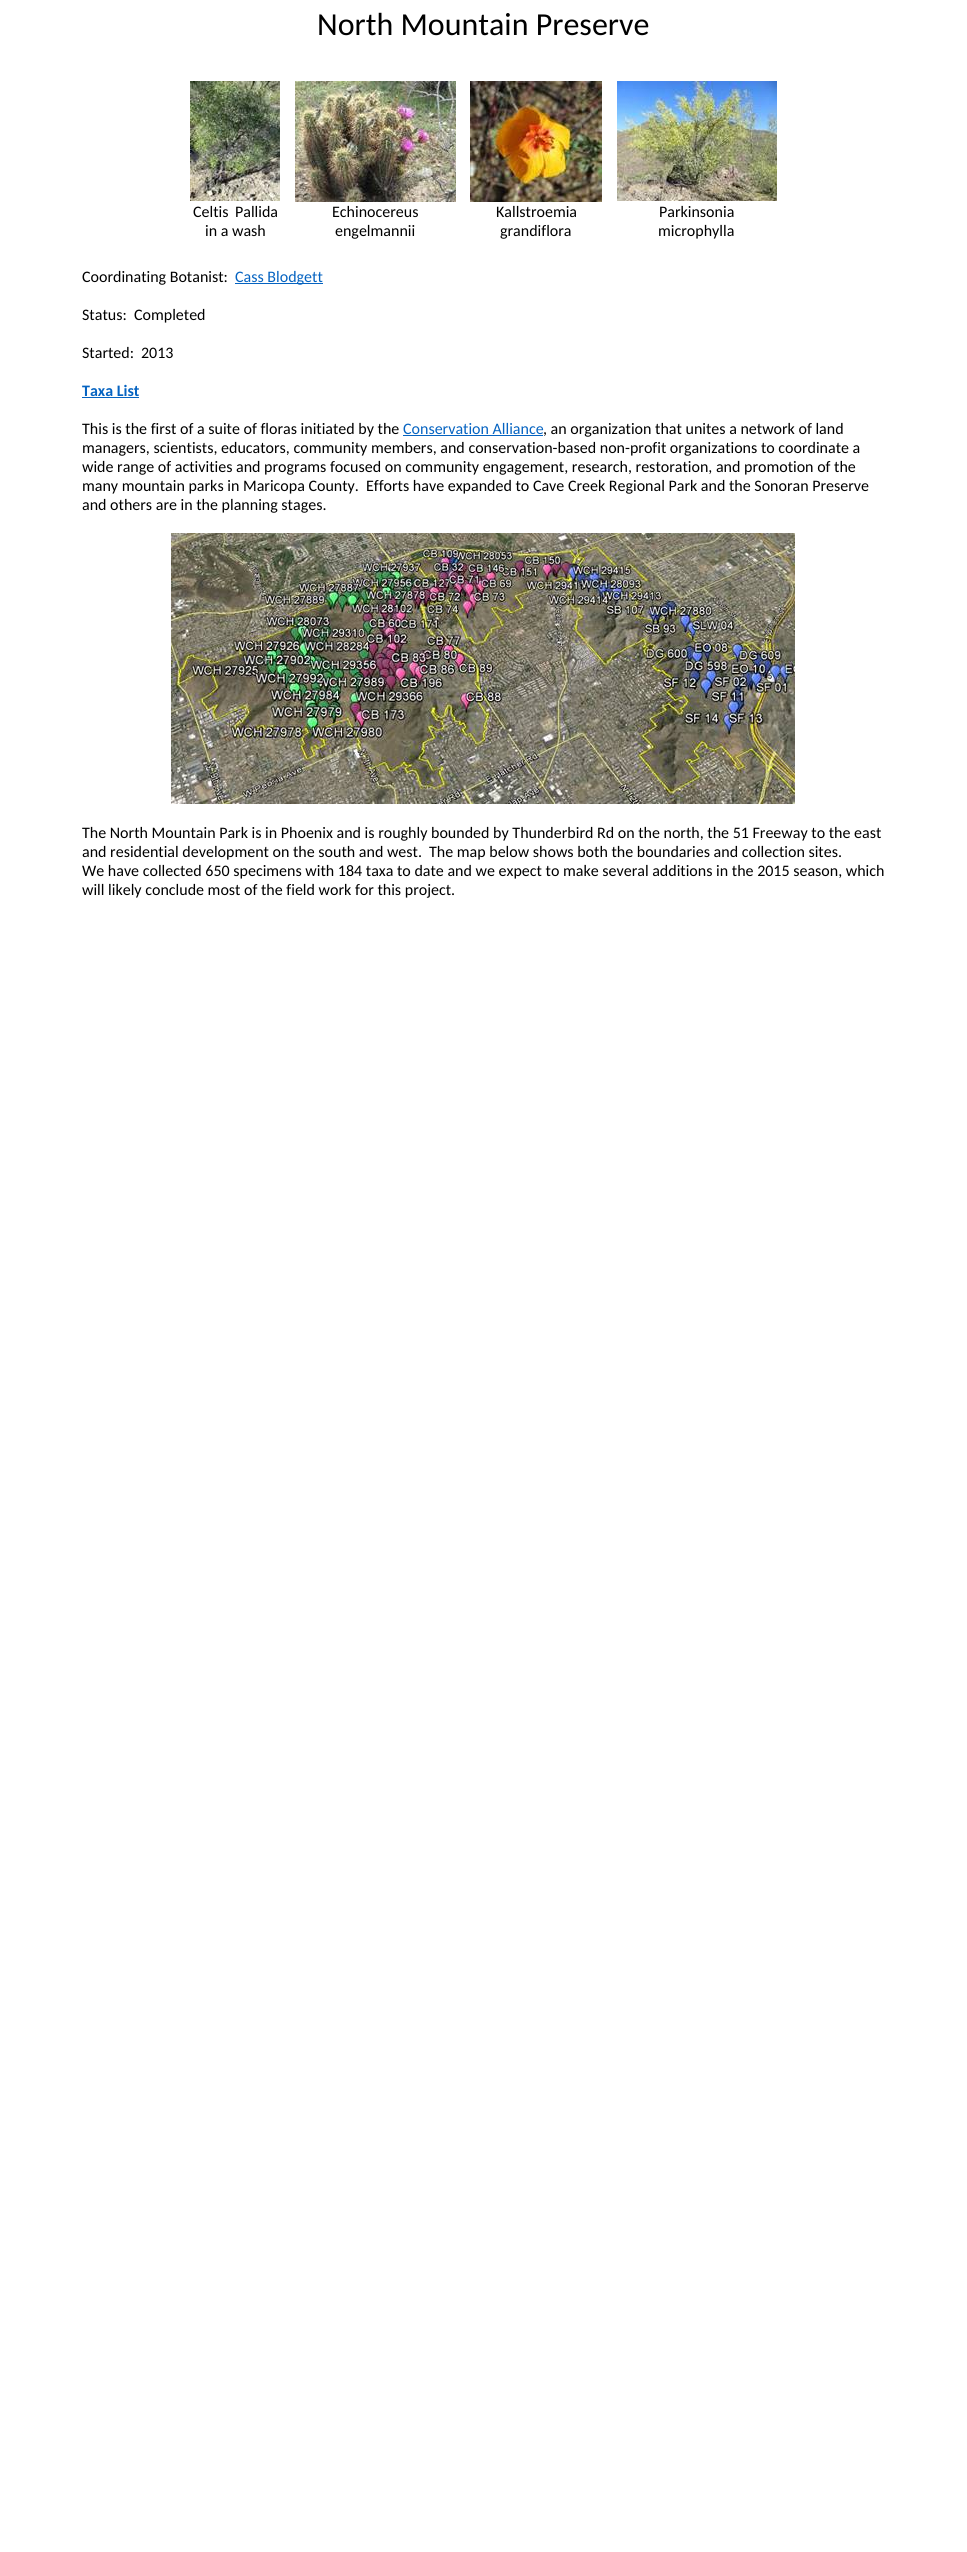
#include <cairo/cairo.h>
#include <math.h>
#include <stddef.h>


static void draw_image(cairo_t *cr, const char *path, double x, double y, double w, double h) {
  cairo_surface_t *image = cairo_image_surface_create_from_png(path);
  cairo_save(cr);
  cairo_set_source_surface(cr, image, x, y);
  cairo_rectangle(cr, x, y, w, h);
  cairo_fill(cr);
  cairo_restore(cr);
  cairo_surface_destroy(image);
}

static void draw(cairo_t *cr) {
  cairo_set_source_rgb(cr, 1, 1, 1);
  cairo_paint(cr);
  draw_image(cr, "images/1.png", 190, 81, 90, 120);
  draw_image(cr, "images/2.png", 295, 81, 161, 121);
  draw_image(cr, "images/3.png", 470, 81, 132, 121);
  draw_image(cr, "images/4.png", 617, 81, 160, 120);
  cairo_set_source_rgb(cr, 5 / 255.0, 99 / 255.0, 193 / 255.0);
  cairo_rectangle(cr, 235, 283, 88, 1);
  cairo_fill(cr);
  cairo_rectangle(cr, 82, 397, 57, 1);
  cairo_fill(cr);
  cairo_rectangle(cr, 403, 435, 140, 1);
  cairo_fill(cr);
  draw_image(cr, "images/5.png", 171, 533, 624, 271);
  cairo_select_font_face(cr, "Carlito", CAIRO_FONT_SLANT_NORMAL, CAIRO_FONT_WEIGHT_NORMAL);
  cairo_set_font_size(cr, 32);
  cairo_set_source_rgb(cr, 0, 0, 0);
  cairo_move_to(cr, 317, 35);
  cairo_show_text(cr, "North Mountain Preserve");
  cairo_set_font_size(cr, 16);
  cairo_move_to(cr, 193, 217);
  cairo_show_text(cr, "Celtis");
  cairo_move_to(cr, 235, 217);
  cairo_show_text(cr, "Pallida");
  cairo_move_to(cr, 205, 236);
  cairo_show_text(cr, "in a wash");
  cairo_move_to(cr, 332, 217);
  cairo_show_text(cr, "Echinocereus");
  cairo_move_to(cr, 335, 236);
  cairo_show_text(cr, "engelmannii");
  cairo_move_to(cr, 496, 217);
  cairo_show_text(cr, "Kallstroemia");
  cairo_move_to(cr, 500, 236);
  cairo_show_text(cr, "grandiflora");
  cairo_move_to(cr, 659, 217);
  cairo_show_text(cr, "Parkinsonia");
  cairo_move_to(cr, 658, 236);
  cairo_show_text(cr, "microphylla");
  cairo_move_to(cr, 82, 282);
  cairo_show_text(cr, "Coordinating Botanist:");
  cairo_set_source_rgb(cr, 5 / 255.0, 99 / 255.0, 193 / 255.0);
  cairo_move_to(cr, 235, 282);
  cairo_show_text(cr, "Cass Blodgett");
  cairo_set_source_rgb(cr, 0, 0, 0);
  cairo_move_to(cr, 82, 320);
  cairo_show_text(cr, "Status:");
  cairo_move_to(cr, 134, 320);
  cairo_show_text(cr, "Completed");
  cairo_move_to(cr, 82, 358);
  cairo_show_text(cr, "Started:");
  cairo_move_to(cr, 141, 358);
  cairo_show_text(cr, "2013");
  cairo_select_font_face(cr, "Carlito", CAIRO_FONT_SLANT_NORMAL, CAIRO_FONT_WEIGHT_BOLD);
  cairo_set_source_rgb(cr, 5 / 255.0, 99 / 255.0, 193 / 255.0);
  cairo_move_to(cr, 82, 396);
  cairo_show_text(cr, "Taxa List");
  cairo_select_font_face(cr, "Carlito", CAIRO_FONT_SLANT_NORMAL, CAIRO_FONT_WEIGHT_NORMAL);
  cairo_set_source_rgb(cr, 0, 0, 0);
  cairo_move_to(cr, 82, 434);
  cairo_show_text(cr, "This is the first of a suite of floras initiated by the");
  cairo_set_source_rgb(cr, 5 / 255.0, 99 / 255.0, 193 / 255.0);
  cairo_move_to(cr, 403, 434);
  cairo_show_text(cr, "Conservation Alliance");
  cairo_set_source_rgb(cr, 0, 0, 0);
  cairo_move_to(cr, 543, 434);
  cairo_show_text(cr, ", an organization that unites a network of land");
  cairo_move_to(cr, 82, 453);
  cairo_show_text(cr, "managers, scientists, educators, community members, and conservation-based non-profit organizations to coordinate a");
  cairo_move_to(cr, 82, 472);
  cairo_show_text(cr, "wide range of activities and programs focused on community engagement, research, restoration, and promotion of the");
  cairo_move_to(cr, 82, 491);
  cairo_show_text(cr, "many mountain parks in Maricopa County.");
  cairo_move_to(cr, 366, 491);
  cairo_show_text(cr, "Efforts have expanded to Cave Creek Regional Park and the Sonoran Preserve");
  cairo_move_to(cr, 82, 510);
  cairo_show_text(cr, "and others are in the planning stages.");
  cairo_move_to(cr, 82, 838);
  cairo_show_text(cr, "The North Mountain Park is in Phoenix and is roughly bounded by Thunderbird Rd on the north, the 51 Freeway to the east");
  cairo_move_to(cr, 82, 857);
  cairo_show_text(cr, "and residential development on the south and west.");
  cairo_move_to(cr, 429, 857);
  cairo_show_text(cr, "The map below shows both the boundaries and collection sites.");
  cairo_move_to(cr, 82, 876);
  cairo_show_text(cr, "We have collected 650 specimens with 184 taxa to date and we expect to make several additions in the 2015 season, which");
  cairo_move_to(cr, 82, 895);
  cairo_show_text(cr, "will likely conclude most of the field work for this project.");
}

int main(void) {
  cairo_surface_t *surface = cairo_image_surface_create(CAIRO_FORMAT_RGB24, 967, 2552);
  cairo_t *cr = cairo_create(surface);
  cairo_font_options_t *options = cairo_font_options_create();
  cairo_font_options_set_hint_metrics(options, CAIRO_HINT_METRICS_OFF);
  cairo_font_options_set_hint_style(options, CAIRO_HINT_STYLE_NONE);
  cairo_set_font_options(cr, options);
  cairo_set_miter_limit(cr, 4);
  draw(cr);
  cairo_surface_write_to_png(surface, "out.png");
  cairo_font_options_destroy(options);
  cairo_destroy(cr);
  cairo_surface_destroy(surface);
  return 0;
}
